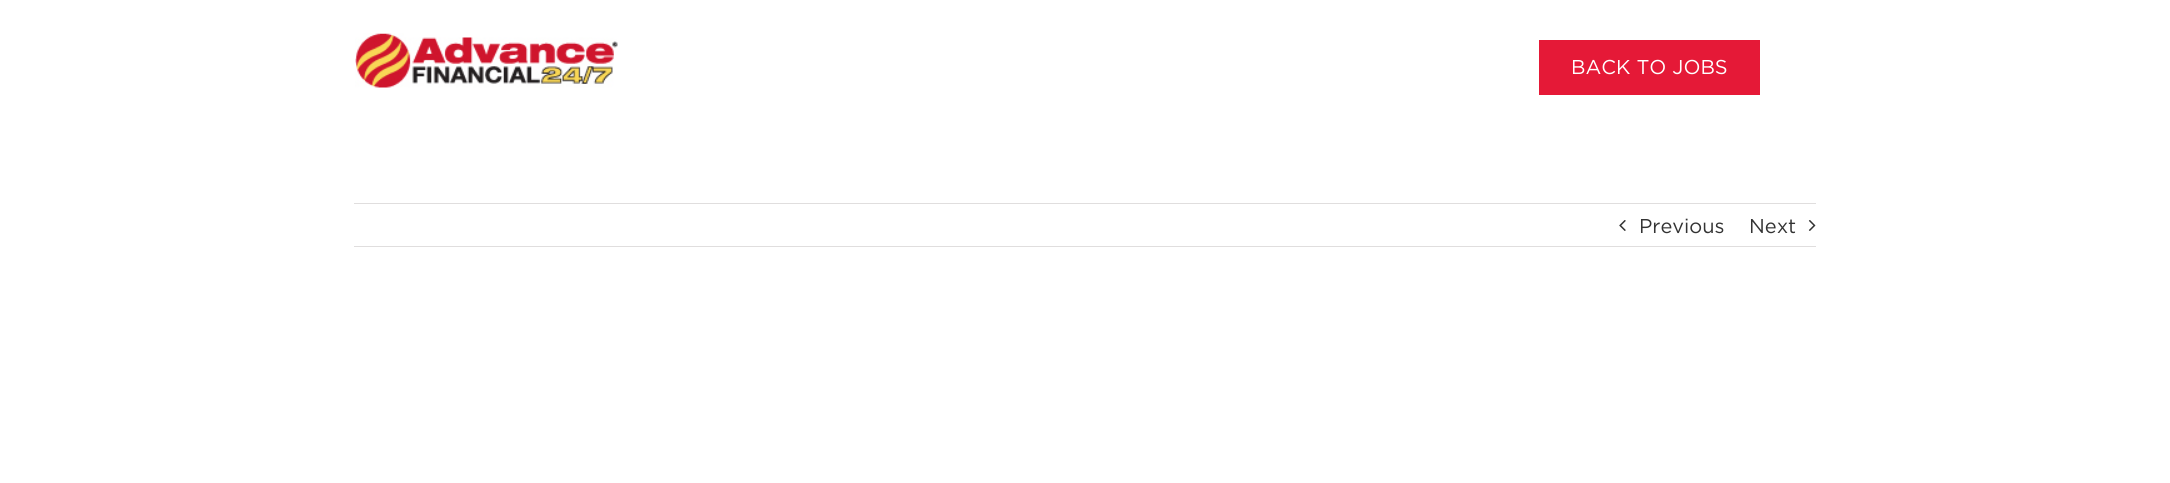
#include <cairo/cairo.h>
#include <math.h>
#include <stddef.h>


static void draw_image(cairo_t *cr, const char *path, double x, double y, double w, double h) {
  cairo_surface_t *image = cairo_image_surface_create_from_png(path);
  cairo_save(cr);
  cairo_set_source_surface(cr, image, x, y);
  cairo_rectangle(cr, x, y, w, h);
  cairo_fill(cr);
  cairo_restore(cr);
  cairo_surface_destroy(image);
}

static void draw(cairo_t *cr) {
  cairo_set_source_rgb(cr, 1, 1, 1);
  cairo_paint(cr);
  draw_image(cr, "images/1.png", 355, 33, 263, 55);
  cairo_set_source_rgb(cr, 229 / 255.0, 25 / 255.0, 55 / 255.0);
  cairo_rectangle(cr, 1539, 40, 221, 55);
  cairo_fill(cr);
  cairo_set_source_rgb(cr, 224 / 255.0, 222 / 255.0, 222 / 255.0);
  cairo_rectangle(cr, 354, 203, 1462, 1);
  cairo_fill(cr);
  cairo_rectangle(cr, 354, 246, 1462, 1);
  cairo_fill(cr);
  draw_image(cr, "images/2.png", 1619, 220, 7, 11);
  draw_image(cr, "images/3.png", 1808, 220, 8, 11);
  cairo_select_font_face(cr, "Gotham", CAIRO_FONT_SLANT_NORMAL, CAIRO_FONT_WEIGHT_NORMAL);
  cairo_set_font_size(cr, 20);
  cairo_set_source_rgb(cr, 1, 1, 1);
  cairo_move_to(cr, 1571, 74);
  cairo_show_text(cr, "BACK TO JOBS");
  cairo_set_source_rgb(cr, 51 / 255.0, 51 / 255.0, 51 / 255.0);
  cairo_move_to(cr, 1639, 233);
  cairo_show_text(cr, "Previous");
  cairo_move_to(cr, 1749, 233);
  cairo_show_text(cr, "Next");
}

int main(void) {
  cairo_surface_t *surface = cairo_image_surface_create(CAIRO_FORMAT_RGB24, 2170, 483);
  cairo_t *cr = cairo_create(surface);
  cairo_font_options_t *options = cairo_font_options_create();
  cairo_font_options_set_hint_metrics(options, CAIRO_HINT_METRICS_OFF);
  cairo_font_options_set_hint_style(options, CAIRO_HINT_STYLE_NONE);
  cairo_set_font_options(cr, options);
  cairo_set_miter_limit(cr, 4);
  draw(cr);
  cairo_surface_write_to_png(surface, "out.png");
  cairo_font_options_destroy(options);
  cairo_destroy(cr);
  cairo_surface_destroy(surface);
  return 0;
}
